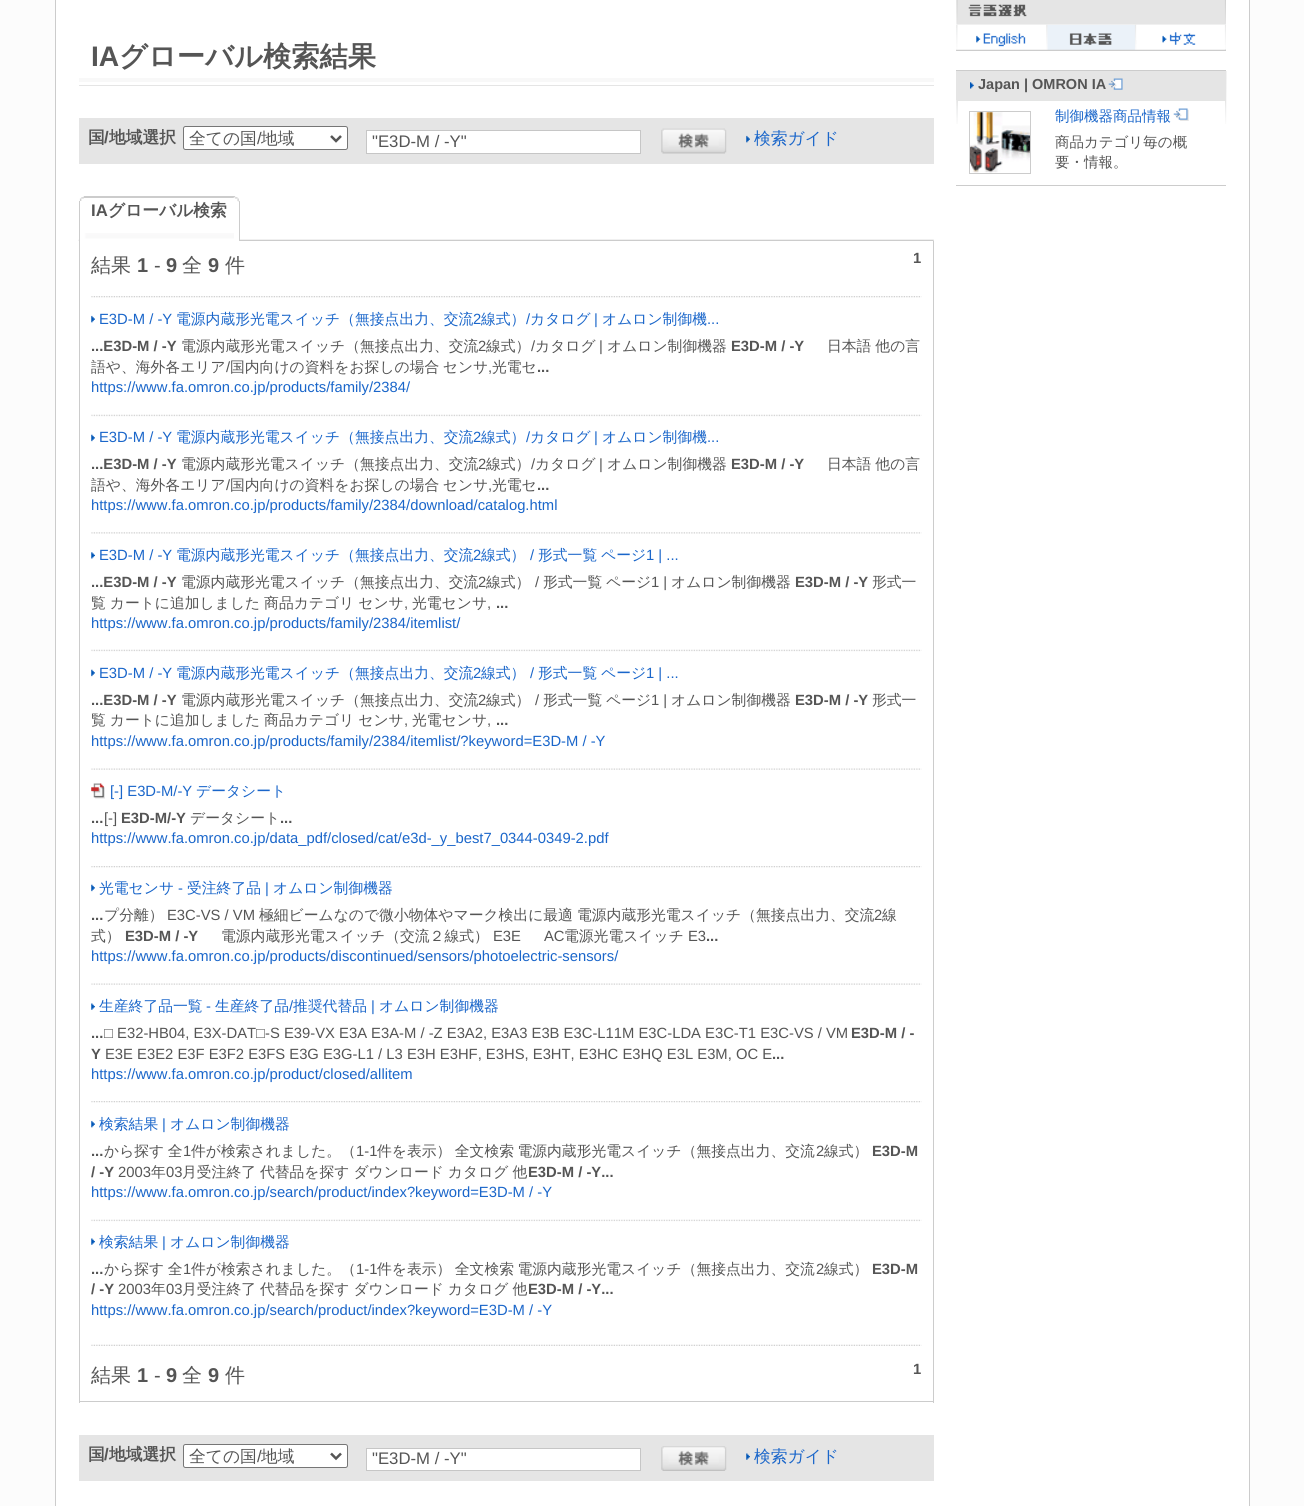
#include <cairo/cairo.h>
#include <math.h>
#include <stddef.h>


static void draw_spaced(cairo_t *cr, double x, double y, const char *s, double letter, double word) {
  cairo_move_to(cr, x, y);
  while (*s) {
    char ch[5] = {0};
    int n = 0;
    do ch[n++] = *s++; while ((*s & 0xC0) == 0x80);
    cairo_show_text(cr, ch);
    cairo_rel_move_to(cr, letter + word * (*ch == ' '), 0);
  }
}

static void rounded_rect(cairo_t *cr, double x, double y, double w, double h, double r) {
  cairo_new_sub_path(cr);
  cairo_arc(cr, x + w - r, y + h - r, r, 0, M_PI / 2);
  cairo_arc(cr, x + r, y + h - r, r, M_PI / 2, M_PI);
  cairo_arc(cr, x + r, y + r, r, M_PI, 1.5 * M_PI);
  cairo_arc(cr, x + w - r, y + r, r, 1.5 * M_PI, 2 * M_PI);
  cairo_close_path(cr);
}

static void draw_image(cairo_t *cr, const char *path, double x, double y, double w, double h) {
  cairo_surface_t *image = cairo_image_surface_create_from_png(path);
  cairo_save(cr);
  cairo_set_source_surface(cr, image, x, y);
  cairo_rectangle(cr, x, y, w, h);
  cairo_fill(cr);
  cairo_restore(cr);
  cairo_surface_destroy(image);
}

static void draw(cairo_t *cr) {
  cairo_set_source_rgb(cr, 252 / 255.0, 252 / 255.0, 252 / 255.0);
  cairo_paint(cr);
  cairo_set_source_rgb(cr, 1, 1, 1);
  cairo_rectangle(cr, 56, 0, 1193, 1506);
  cairo_fill(cr);
  cairo_set_source_rgb(cr, 204 / 255.0, 204 / 255.0, 204 / 255.0);
  cairo_rectangle(cr, 1249, 0, 1, 1506);
  cairo_fill(cr);
  cairo_rectangle(cr, 55, 0, 1, 1506);
  cairo_fill(cr);
  cairo_set_source_rgb(cr, 248 / 255.0, 248 / 255.0, 248 / 255.0);
  cairo_rectangle(cr, 79, 78, 855, 4);
  cairo_fill(cr);
  cairo_set_source_rgb(cr, 229 / 255.0, 229 / 255.0, 229 / 255.0);
  cairo_rectangle(cr, 79, 85, 855, 1);
  cairo_fill(cr);
  cairo_rectangle(cr, 79, 118, 855, 46);
  cairo_fill(cr);
  cairo_set_source_rgb(cr, 1, 1, 1);
  rounded_rect(cr, 183.5, 126.5, 164, 23, 2);
  cairo_fill_preserve(cr);
  cairo_set_source_rgb(cr, 118 / 255.0, 118 / 255.0, 118 / 255.0);
  cairo_set_line_width(cr, 1);
  cairo_stroke(cr);
  cairo_new_path(cr);
  cairo_move_to(cr, 331, 136);
  cairo_line_to(cr, 336, 141);
  cairo_line_to(cr, 341, 136);
  cairo_set_source_rgb(cr, 85 / 255.0, 85 / 255.0, 85 / 255.0);
  cairo_set_line_width(cr, 2.5);
  cairo_stroke(cr);
  cairo_set_source_rgb(cr, 1, 1, 1);
  cairo_rectangle(cr, 366.5, 130.5, 274, 23);
  cairo_fill_preserve(cr);
  cairo_set_source_rgb(cr, 198 / 255.0, 198 / 255.0, 198 / 255.0);
  cairo_set_line_width(cr, 1);
  cairo_stroke(cr);
  draw_image(cr, "images/1.png", 661, 128, 66, 26);
  draw_image(cr, "images/2.png", 746, 135, 4, 8);
  draw_image(cr, "images/6.png", 78, 239, 856, 2);
  cairo_set_source_rgb(cr, 204 / 255.0, 204 / 255.0, 204 / 255.0);
  cairo_rectangle(cr, 239, 196, 1, 45);
  cairo_fill(cr);
  draw_image(cr, "images/3.png", 80, 233, 154, 8);
  cairo_new_path(cr);
  cairo_move_to(cr, 79, 196);
  cairo_line_to(cr, 239, 196);
  cairo_line_to(cr, 234, 198);
  cairo_line_to(cr, 80, 198);
  cairo_close_path(cr);
  cairo_fill(cr);
  cairo_set_source_rgb(cr, 1, 1, 1);
  cairo_new_path(cr);
  cairo_move_to(cr, 239, 196);
  cairo_line_to(cr, 239, 241);
  cairo_line_to(cr, 234, 241);
  cairo_line_to(cr, 234, 198);
  cairo_close_path(cr);
  cairo_fill(cr);
  cairo_set_source_rgb(cr, 204 / 255.0, 204 / 255.0, 204 / 255.0);
  cairo_rectangle(cr, 79, 196, 1, 45);
  cairo_fill(cr);
  draw_image(cr, "images/4.png", 79, 196, 5, 5);
  draw_image(cr, "images/5.png", 233, 196, 7, 6);
  cairo_rectangle(cr, 933, 241, 1, 1162);
  cairo_fill(cr);
  cairo_rectangle(cr, 79, 1401, 855, 1);
  cairo_fill(cr);
  cairo_rectangle(cr, 79, 241, 1, 1162);
  cairo_fill(cr);
  draw_image(cr, "images/7.png", 91, 1344, 831, 2);
  draw_image(cr, "images/8.png", 91, 296, 831, 2);
  draw_image(cr, "images/9.png", 91, 315, 4, 8);
  draw_image(cr, "images/10.png", 91, 414, 831, 3);
  draw_image(cr, "images/11.png", 91, 434, 4, 8);
  draw_image(cr, "images/12.png", 91, 532, 831, 2);
  draw_image(cr, "images/13.png", 91, 552, 4, 7);
  draw_image(cr, "images/10.png", 91, 649, 831, 3);
  draw_image(cr, "images/11.png", 91, 669, 4, 8);
  draw_image(cr, "images/14.png", 91, 768, 831, 2);
  draw_image(cr, "images/15.png", 91, 783, 14, 16);
  draw_image(cr, "images/16.png", 91, 866, 831, 2);
  draw_image(cr, "images/11.png", 91, 884, 4, 8);
  draw_image(cr, "images/14.png", 91, 983, 831, 2);
  draw_image(cr, "images/17.png", 91, 1003, 4, 7);
  draw_image(cr, "images/16.png", 91, 1101, 831, 2);
  draw_image(cr, "images/9.png", 91, 1120, 4, 8);
  draw_image(cr, "images/18.png", 91, 1219, 831, 3);
  draw_image(cr, "images/17.png", 91, 1238, 4, 7);
  cairo_set_source_rgb(cr, 229 / 255.0, 229 / 255.0, 229 / 255.0);
  cairo_rectangle(cr, 79, 1435, 855, 46);
  cairo_fill(cr);
  cairo_set_source_rgb(cr, 1, 1, 1);
  rounded_rect(cr, 183.5, 1444.5, 164, 23, 2);
  cairo_fill_preserve(cr);
  cairo_set_source_rgb(cr, 118 / 255.0, 118 / 255.0, 118 / 255.0);
  cairo_stroke(cr);
  cairo_new_path(cr);
  cairo_move_to(cr, 331, 1453.5);
  cairo_line_to(cr, 336, 1458.5);
  cairo_line_to(cr, 341, 1453.5);
  cairo_set_source_rgb(cr, 85 / 255.0, 85 / 255.0, 85 / 255.0);
  cairo_set_line_width(cr, 2.5);
  cairo_stroke(cr);
  cairo_set_source_rgb(cr, 1, 1, 1);
  cairo_rectangle(cr, 366.5, 1448.5, 274, 22);
  cairo_fill_preserve(cr);
  cairo_set_source_rgb(cr, 198 / 255.0, 198 / 255.0, 198 / 255.0);
  cairo_set_line_width(cr, 1);
  cairo_stroke(cr);
  draw_image(cr, "images/19.png", 661, 1446, 66, 25);
  draw_image(cr, "images/20.png", 746, 1453, 4, 7);
  draw_image(cr, "images/22.png", 956, 24, 270, 27);
  draw_image(cr, "images/23.png", 956, 25, 92, 26);
  draw_image(cr, "images/25.png", 1047, 24, 90, 26);
  draw_image(cr, "images/21.png", 956, 0, 270, 25);
  draw_image(cr, "images/24.png", 956, 44, 70, 7);
  cairo_set_source_rgba(cr, 1, 1, 1, 0.75);
  cairo_rectangle(cr, 1136, 25, 1, 15);
  cairo_fill(cr);
  draw_image(cr, "images/26.png", 1169, 45, 57, 5);
  draw_image(cr, "images/27.png", 956, 71, 271, 53);
  cairo_set_source_rgb(cr, 204 / 255.0, 204 / 255.0, 204 / 255.0);
  cairo_rectangle(cr, 956, 70, 270, 1);
  cairo_fill(cr);
  cairo_rectangle(cr, 956, 185, 270, 1);
  cairo_fill(cr);
  cairo_set_source_rgb(cr, 229 / 255.0, 229 / 255.0, 229 / 255.0);
  cairo_rectangle(cr, 956, 71, 270, 29);
  cairo_fill(cr);
  draw_image(cr, "images/28.png", 970, 82, 4, 7);
  draw_image(cr, "images/29.png", 1108, 78, 15, 12);
  cairo_set_source_rgb(cr, 1, 1, 1);
  cairo_rectangle(cr, 958, 101, 267, 23);
  cairo_fill(cr);
  cairo_rectangle(cr, 969.5, 111.5, 61, 62);
  cairo_set_source_rgb(cr, 204 / 255.0, 204 / 255.0, 204 / 255.0);
  cairo_stroke(cr);
  draw_image(cr, "images/30.png", 970, 112, 60, 61);
  draw_image(cr, "images/31.png", 1173, 108, 16, 13);
  cairo_select_font_face(cr, "Liberation Sans", CAIRO_FONT_SLANT_NORMAL, CAIRO_FONT_WEIGHT_BOLD);
  cairo_set_font_size(cr, 28.25);
  cairo_set_source_rgb(cr, 85 / 255.0, 85 / 255.0, 85 / 255.0);
  cairo_move_to(cr, 91, 66);
  cairo_show_text(cr, "IA");
  cairo_select_font_face(cr, "WenQuanYi Zen Hei", CAIRO_FONT_SLANT_NORMAL, CAIRO_FONT_WEIGHT_BOLD);
  cairo_move_to(cr, 119, 66);
  cairo_show_text(cr, "グローバル検索結果");
  cairo_set_font_size(cr, 16.75);
  cairo_move_to(cr, 88, 143);
  cairo_show_text(cr, "国");
  cairo_select_font_face(cr, "Liberation Sans", CAIRO_FONT_SLANT_NORMAL, CAIRO_FONT_WEIGHT_BOLD);
  cairo_move_to(cr, 104, 143);
  cairo_show_text(cr, "/");
  cairo_select_font_face(cr, "WenQuanYi Zen Hei", CAIRO_FONT_SLANT_NORMAL, CAIRO_FONT_WEIGHT_BOLD);
  cairo_move_to(cr, 109, 143);
  cairo_show_text(cr, "地域選択");
  cairo_select_font_face(cr, "WenQuanYi Zen Hei Medium", CAIRO_FONT_SLANT_NORMAL, CAIRO_FONT_WEIGHT_NORMAL);
  cairo_move_to(cr, 189, 144);
  cairo_show_text(cr, "全ての国");
  cairo_select_font_face(cr, "Liberation Sans", CAIRO_FONT_SLANT_NORMAL, CAIRO_FONT_WEIGHT_NORMAL);
  cairo_move_to(cr, 257, 144);
  cairo_show_text(cr, "/");
  cairo_select_font_face(cr, "WenQuanYi Zen Hei Medium", CAIRO_FONT_SLANT_NORMAL, CAIRO_FONT_WEIGHT_NORMAL);
  cairo_move_to(cr, 261, 144);
  cairo_show_text(cr, "地域");
  cairo_select_font_face(cr, "Liberation Sans", CAIRO_FONT_SLANT_NORMAL, CAIRO_FONT_WEIGHT_NORMAL);
  cairo_move_to(cr, 372, 147);
  cairo_show_text(cr, "\"E3D-M / -Y\"");
  cairo_select_font_face(cr, "WenQuanYi Zen Hei Medium", CAIRO_FONT_SLANT_NORMAL, CAIRO_FONT_WEIGHT_NORMAL);
  cairo_set_source_rgb(cr, 26 / 255.0, 102 / 255.0, 202 / 255.0);
  cairo_move_to(cr, 754, 144);
  cairo_show_text(cr, "検索ガイド");
  cairo_select_font_face(cr, "Liberation Sans", CAIRO_FONT_SLANT_NORMAL, CAIRO_FONT_WEIGHT_BOLD);
  cairo_set_source_rgb(cr, 85 / 255.0, 85 / 255.0, 85 / 255.0);
  cairo_move_to(cr, 91, 216);
  cairo_show_text(cr, "IA");
  cairo_select_font_face(cr, "WenQuanYi Zen Hei", CAIRO_FONT_SLANT_NORMAL, CAIRO_FONT_WEIGHT_BOLD);
  cairo_move_to(cr, 108, 216);
  cairo_show_text(cr, "グローバル検索");
  cairo_select_font_face(cr, "WenQuanYi Zen Hei Medium", CAIRO_FONT_SLANT_NORMAL, CAIRO_FONT_WEIGHT_NORMAL);
  cairo_set_font_size(cr, 20);
  cairo_move_to(cr, 91, 272);
  cairo_show_text(cr, "結果");
  cairo_select_font_face(cr, "Liberation Sans", CAIRO_FONT_SLANT_NORMAL, CAIRO_FONT_WEIGHT_BOLD);
  cairo_move_to(cr, 137, 272);
  cairo_show_text(cr, "1");
  cairo_select_font_face(cr, "Liberation Sans", CAIRO_FONT_SLANT_NORMAL, CAIRO_FONT_WEIGHT_NORMAL);
  cairo_move_to(cr, 154, 272);
  cairo_show_text(cr, "-");
  cairo_select_font_face(cr, "Liberation Sans", CAIRO_FONT_SLANT_NORMAL, CAIRO_FONT_WEIGHT_BOLD);
  cairo_move_to(cr, 166, 272);
  cairo_show_text(cr, "9");
  cairo_select_font_face(cr, "WenQuanYi Zen Hei Medium", CAIRO_FONT_SLANT_NORMAL, CAIRO_FONT_WEIGHT_NORMAL);
  cairo_move_to(cr, 182, 272);
  cairo_show_text(cr, "全");
  cairo_select_font_face(cr, "Liberation Sans", CAIRO_FONT_SLANT_NORMAL, CAIRO_FONT_WEIGHT_BOLD);
  cairo_move_to(cr, 208, 272);
  cairo_show_text(cr, "9");
  cairo_select_font_face(cr, "WenQuanYi Zen Hei Medium", CAIRO_FONT_SLANT_NORMAL, CAIRO_FONT_WEIGHT_NORMAL);
  cairo_move_to(cr, 225, 272);
  cairo_show_text(cr, "件");
  cairo_select_font_face(cr, "Liberation Sans", CAIRO_FONT_SLANT_NORMAL, CAIRO_FONT_WEIGHT_BOLD);
  cairo_set_font_size(cr, 14.8);
  cairo_move_to(cr, 913, 263);
  cairo_show_text(cr, "1");
  cairo_select_font_face(cr, "Liberation Sans", CAIRO_FONT_SLANT_NORMAL, CAIRO_FONT_WEIGHT_NORMAL);
  cairo_set_source_rgb(cr, 26 / 255.0, 102 / 255.0, 202 / 255.0);
  cairo_move_to(cr, 99, 324);
  cairo_show_text(cr, "E3D-M / -Y");
  cairo_select_font_face(cr, "WenQuanYi Zen Hei Medium", CAIRO_FONT_SLANT_NORMAL, CAIRO_FONT_WEIGHT_NORMAL);
  cairo_move_to(cr, 176, 324);
  cairo_show_text(cr, "電源内蔵形光電スイッチ（無接点出力、交流");
  cairo_select_font_face(cr, "Liberation Sans", CAIRO_FONT_SLANT_NORMAL, CAIRO_FONT_WEIGHT_NORMAL);
  cairo_move_to(cr, 473, 324);
  cairo_show_text(cr, "2");
  cairo_select_font_face(cr, "WenQuanYi Zen Hei Medium", CAIRO_FONT_SLANT_NORMAL, CAIRO_FONT_WEIGHT_NORMAL);
  cairo_move_to(cr, 481, 324);
  cairo_show_text(cr, "線式）");
  cairo_select_font_face(cr, "Liberation Sans", CAIRO_FONT_SLANT_NORMAL, CAIRO_FONT_WEIGHT_NORMAL);
  cairo_move_to(cr, 526, 324);
  cairo_show_text(cr, "/");
  cairo_select_font_face(cr, "WenQuanYi Zen Hei Medium", CAIRO_FONT_SLANT_NORMAL, CAIRO_FONT_WEIGHT_NORMAL);
  cairo_move_to(cr, 530, 324);
  cairo_show_text(cr, "カタログ");
  cairo_select_font_face(cr, "Liberation Sans", CAIRO_FONT_SLANT_NORMAL, CAIRO_FONT_WEIGHT_NORMAL);
  cairo_move_to(cr, 594, 324);
  cairo_show_text(cr, "|");
  cairo_select_font_face(cr, "WenQuanYi Zen Hei Medium", CAIRO_FONT_SLANT_NORMAL, CAIRO_FONT_WEIGHT_NORMAL);
  cairo_move_to(cr, 602, 324);
  cairo_show_text(cr, "オムロン制御機");
  cairo_select_font_face(cr, "Liberation Sans", CAIRO_FONT_SLANT_NORMAL, CAIRO_FONT_WEIGHT_NORMAL);
  cairo_move_to(cr, 707, 324);
  cairo_show_text(cr, "...");
  cairo_select_font_face(cr, "Liberation Sans", CAIRO_FONT_SLANT_NORMAL, CAIRO_FONT_WEIGHT_BOLD);
  cairo_set_source_rgb(cr, 85 / 255.0, 85 / 255.0, 85 / 255.0);
  cairo_move_to(cr, 91, 351);
  cairo_show_text(cr, "...E3D-M / -Y");
  cairo_select_font_face(cr, "WenQuanYi Zen Hei Medium", CAIRO_FONT_SLANT_NORMAL, CAIRO_FONT_WEIGHT_NORMAL);
  cairo_move_to(cr, 181, 351);
  cairo_show_text(cr, "電源内蔵形光電スイッチ（無接点出力、交流");
  cairo_select_font_face(cr, "Liberation Sans", CAIRO_FONT_SLANT_NORMAL, CAIRO_FONT_WEIGHT_NORMAL);
  cairo_move_to(cr, 478, 351);
  cairo_show_text(cr, "2");
  cairo_select_font_face(cr, "WenQuanYi Zen Hei Medium", CAIRO_FONT_SLANT_NORMAL, CAIRO_FONT_WEIGHT_NORMAL);
  cairo_move_to(cr, 486, 351);
  cairo_show_text(cr, "線式）");
  cairo_select_font_face(cr, "Liberation Sans", CAIRO_FONT_SLANT_NORMAL, CAIRO_FONT_WEIGHT_NORMAL);
  cairo_move_to(cr, 531, 351);
  cairo_show_text(cr, "/");
  cairo_select_font_face(cr, "WenQuanYi Zen Hei Medium", CAIRO_FONT_SLANT_NORMAL, CAIRO_FONT_WEIGHT_NORMAL);
  cairo_move_to(cr, 535, 351);
  cairo_show_text(cr, "カタログ");
  cairo_select_font_face(cr, "Liberation Sans", CAIRO_FONT_SLANT_NORMAL, CAIRO_FONT_WEIGHT_NORMAL);
  cairo_move_to(cr, 599, 351);
  cairo_show_text(cr, "|");
  cairo_select_font_face(cr, "WenQuanYi Zen Hei Medium", CAIRO_FONT_SLANT_NORMAL, CAIRO_FONT_WEIGHT_NORMAL);
  cairo_move_to(cr, 607, 351);
  cairo_show_text(cr, "オムロン制御機器");
  cairo_select_font_face(cr, "Liberation Sans", CAIRO_FONT_SLANT_NORMAL, CAIRO_FONT_WEIGHT_BOLD);
  cairo_move_to(cr, 731, 351);
  cairo_show_text(cr, "E3D-M / -Y");
  cairo_select_font_face(cr, "WenQuanYi Zen Hei Medium", CAIRO_FONT_SLANT_NORMAL, CAIRO_FONT_WEIGHT_NORMAL);
  draw_spaced(cr, 827, 351, "日本語 他の言", 0, -0.5);
  cairo_move_to(cr, 91, 372);
  cairo_show_text(cr, "語や、海外各エリア");
  cairo_select_font_face(cr, "Liberation Sans", CAIRO_FONT_SLANT_NORMAL, CAIRO_FONT_WEIGHT_NORMAL);
  cairo_move_to(cr, 226, 372);
  cairo_show_text(cr, "/");
  cairo_select_font_face(cr, "WenQuanYi Zen Hei Medium", CAIRO_FONT_SLANT_NORMAL, CAIRO_FONT_WEIGHT_NORMAL);
  draw_spaced(cr, 230, 372, "国内向けの資料をお探しの場合 センサ", 0, -1);
  cairo_select_font_face(cr, "Liberation Sans", CAIRO_FONT_SLANT_NORMAL, CAIRO_FONT_WEIGHT_NORMAL);
  cairo_move_to(cr, 488, 372);
  cairo_show_text(cr, ",");
  cairo_select_font_face(cr, "WenQuanYi Zen Hei Medium", CAIRO_FONT_SLANT_NORMAL, CAIRO_FONT_WEIGHT_NORMAL);
  cairo_move_to(cr, 492, 372);
  cairo_show_text(cr, "光電セ");
  cairo_select_font_face(cr, "Liberation Sans", CAIRO_FONT_SLANT_NORMAL, CAIRO_FONT_WEIGHT_BOLD);
  cairo_move_to(cr, 537, 372);
  cairo_show_text(cr, "...");
  cairo_select_font_face(cr, "Liberation Sans", CAIRO_FONT_SLANT_NORMAL, CAIRO_FONT_WEIGHT_NORMAL);
  cairo_set_source_rgb(cr, 26 / 255.0, 102 / 255.0, 202 / 255.0);
  cairo_move_to(cr, 91, 392);
  cairo_show_text(cr, "https://www.fa.omron.co.jp/products/family/2384/");
  cairo_move_to(cr, 99, 442);
  cairo_show_text(cr, "E3D-M / -Y");
  cairo_select_font_face(cr, "WenQuanYi Zen Hei Medium", CAIRO_FONT_SLANT_NORMAL, CAIRO_FONT_WEIGHT_NORMAL);
  cairo_move_to(cr, 176, 442);
  cairo_show_text(cr, "電源内蔵形光電スイッチ（無接点出力、交流");
  cairo_select_font_face(cr, "Liberation Sans", CAIRO_FONT_SLANT_NORMAL, CAIRO_FONT_WEIGHT_NORMAL);
  cairo_move_to(cr, 473, 442);
  cairo_show_text(cr, "2");
  cairo_select_font_face(cr, "WenQuanYi Zen Hei Medium", CAIRO_FONT_SLANT_NORMAL, CAIRO_FONT_WEIGHT_NORMAL);
  cairo_move_to(cr, 481, 442);
  cairo_show_text(cr, "線式）");
  cairo_select_font_face(cr, "Liberation Sans", CAIRO_FONT_SLANT_NORMAL, CAIRO_FONT_WEIGHT_NORMAL);
  cairo_move_to(cr, 526, 442);
  cairo_show_text(cr, "/");
  cairo_select_font_face(cr, "WenQuanYi Zen Hei Medium", CAIRO_FONT_SLANT_NORMAL, CAIRO_FONT_WEIGHT_NORMAL);
  cairo_move_to(cr, 530, 442);
  cairo_show_text(cr, "カタログ");
  cairo_select_font_face(cr, "Liberation Sans", CAIRO_FONT_SLANT_NORMAL, CAIRO_FONT_WEIGHT_NORMAL);
  cairo_move_to(cr, 594, 442);
  cairo_show_text(cr, "|");
  cairo_select_font_face(cr, "WenQuanYi Zen Hei Medium", CAIRO_FONT_SLANT_NORMAL, CAIRO_FONT_WEIGHT_NORMAL);
  cairo_move_to(cr, 602, 442);
  cairo_show_text(cr, "オムロン制御機");
  cairo_select_font_face(cr, "Liberation Sans", CAIRO_FONT_SLANT_NORMAL, CAIRO_FONT_WEIGHT_NORMAL);
  cairo_move_to(cr, 707, 442);
  cairo_show_text(cr, "...");
  cairo_select_font_face(cr, "Liberation Sans", CAIRO_FONT_SLANT_NORMAL, CAIRO_FONT_WEIGHT_BOLD);
  cairo_set_source_rgb(cr, 85 / 255.0, 85 / 255.0, 85 / 255.0);
  cairo_move_to(cr, 91, 469);
  cairo_show_text(cr, "...E3D-M / -Y");
  cairo_select_font_face(cr, "WenQuanYi Zen Hei Medium", CAIRO_FONT_SLANT_NORMAL, CAIRO_FONT_WEIGHT_NORMAL);
  cairo_move_to(cr, 181, 469);
  cairo_show_text(cr, "電源内蔵形光電スイッチ（無接点出力、交流");
  cairo_select_font_face(cr, "Liberation Sans", CAIRO_FONT_SLANT_NORMAL, CAIRO_FONT_WEIGHT_NORMAL);
  cairo_move_to(cr, 478, 469);
  cairo_show_text(cr, "2");
  cairo_select_font_face(cr, "WenQuanYi Zen Hei Medium", CAIRO_FONT_SLANT_NORMAL, CAIRO_FONT_WEIGHT_NORMAL);
  cairo_move_to(cr, 486, 469);
  cairo_show_text(cr, "線式）");
  cairo_select_font_face(cr, "Liberation Sans", CAIRO_FONT_SLANT_NORMAL, CAIRO_FONT_WEIGHT_NORMAL);
  cairo_move_to(cr, 531, 469);
  cairo_show_text(cr, "/");
  cairo_select_font_face(cr, "WenQuanYi Zen Hei Medium", CAIRO_FONT_SLANT_NORMAL, CAIRO_FONT_WEIGHT_NORMAL);
  cairo_move_to(cr, 535, 469);
  cairo_show_text(cr, "カタログ");
  cairo_select_font_face(cr, "Liberation Sans", CAIRO_FONT_SLANT_NORMAL, CAIRO_FONT_WEIGHT_NORMAL);
  cairo_move_to(cr, 599, 469);
  cairo_show_text(cr, "|");
  cairo_select_font_face(cr, "WenQuanYi Zen Hei Medium", CAIRO_FONT_SLANT_NORMAL, CAIRO_FONT_WEIGHT_NORMAL);
  cairo_move_to(cr, 607, 469);
  cairo_show_text(cr, "オムロン制御機器");
  cairo_select_font_face(cr, "Liberation Sans", CAIRO_FONT_SLANT_NORMAL, CAIRO_FONT_WEIGHT_BOLD);
  cairo_move_to(cr, 731, 469);
  cairo_show_text(cr, "E3D-M / -Y");
  cairo_select_font_face(cr, "WenQuanYi Zen Hei Medium", CAIRO_FONT_SLANT_NORMAL, CAIRO_FONT_WEIGHT_NORMAL);
  draw_spaced(cr, 827, 469, "日本語 他の言", 0, -0.5);
  cairo_move_to(cr, 91, 490);
  cairo_show_text(cr, "語や、海外各エリア");
  cairo_select_font_face(cr, "Liberation Sans", CAIRO_FONT_SLANT_NORMAL, CAIRO_FONT_WEIGHT_NORMAL);
  cairo_move_to(cr, 226, 490);
  cairo_show_text(cr, "/");
  cairo_select_font_face(cr, "WenQuanYi Zen Hei Medium", CAIRO_FONT_SLANT_NORMAL, CAIRO_FONT_WEIGHT_NORMAL);
  draw_spaced(cr, 230, 490, "国内向けの資料をお探しの場合 センサ", 0, -1);
  cairo_select_font_face(cr, "Liberation Sans", CAIRO_FONT_SLANT_NORMAL, CAIRO_FONT_WEIGHT_NORMAL);
  cairo_move_to(cr, 488, 490);
  cairo_show_text(cr, ",");
  cairo_select_font_face(cr, "WenQuanYi Zen Hei Medium", CAIRO_FONT_SLANT_NORMAL, CAIRO_FONT_WEIGHT_NORMAL);
  cairo_move_to(cr, 492, 490);
  cairo_show_text(cr, "光電セ");
  cairo_select_font_face(cr, "Liberation Sans", CAIRO_FONT_SLANT_NORMAL, CAIRO_FONT_WEIGHT_BOLD);
  cairo_move_to(cr, 537, 490);
  cairo_show_text(cr, "...");
  cairo_select_font_face(cr, "Liberation Sans", CAIRO_FONT_SLANT_NORMAL, CAIRO_FONT_WEIGHT_NORMAL);
  cairo_set_source_rgb(cr, 26 / 255.0, 102 / 255.0, 202 / 255.0);
  cairo_move_to(cr, 91, 510);
  cairo_show_text(cr, "https://www.fa.omron.co.jp/products/family/2384/download/catalog.html");
  cairo_move_to(cr, 99, 560);
  cairo_show_text(cr, "E3D-M / -Y");
  cairo_select_font_face(cr, "WenQuanYi Zen Hei Medium", CAIRO_FONT_SLANT_NORMAL, CAIRO_FONT_WEIGHT_NORMAL);
  cairo_move_to(cr, 176, 560);
  cairo_show_text(cr, "電源内蔵形光電スイッチ（無接点出力、交流");
  cairo_select_font_face(cr, "Liberation Sans", CAIRO_FONT_SLANT_NORMAL, CAIRO_FONT_WEIGHT_NORMAL);
  cairo_move_to(cr, 473, 560);
  cairo_show_text(cr, "2");
  cairo_select_font_face(cr, "WenQuanYi Zen Hei Medium", CAIRO_FONT_SLANT_NORMAL, CAIRO_FONT_WEIGHT_NORMAL);
  cairo_move_to(cr, 481, 560);
  cairo_show_text(cr, "線式）");
  cairo_select_font_face(cr, "Liberation Sans", CAIRO_FONT_SLANT_NORMAL, CAIRO_FONT_WEIGHT_NORMAL);
  cairo_move_to(cr, 530, 560);
  cairo_show_text(cr, "/");
  cairo_select_font_face(cr, "WenQuanYi Zen Hei Medium", CAIRO_FONT_SLANT_NORMAL, CAIRO_FONT_WEIGHT_NORMAL);
  cairo_move_to(cr, 538, 560);
  cairo_show_text(cr, "形式一覧");
  cairo_move_to(cr, 601, 560);
  cairo_show_text(cr, "ページ");
  cairo_select_font_face(cr, "Liberation Sans", CAIRO_FONT_SLANT_NORMAL, CAIRO_FONT_WEIGHT_NORMAL);
  cairo_move_to(cr, 646, 560);
  cairo_show_text(cr, "1 | ...");
  cairo_select_font_face(cr, "Liberation Sans", CAIRO_FONT_SLANT_NORMAL, CAIRO_FONT_WEIGHT_BOLD);
  cairo_set_source_rgb(cr, 85 / 255.0, 85 / 255.0, 85 / 255.0);
  cairo_move_to(cr, 91, 587);
  cairo_show_text(cr, "...E3D-M / -Y");
  cairo_select_font_face(cr, "WenQuanYi Zen Hei Medium", CAIRO_FONT_SLANT_NORMAL, CAIRO_FONT_WEIGHT_NORMAL);
  cairo_move_to(cr, 181, 587);
  cairo_show_text(cr, "電源内蔵形光電スイッチ（無接点出力、交流");
  cairo_select_font_face(cr, "Liberation Sans", CAIRO_FONT_SLANT_NORMAL, CAIRO_FONT_WEIGHT_NORMAL);
  cairo_move_to(cr, 478, 587);
  cairo_show_text(cr, "2");
  cairo_select_font_face(cr, "WenQuanYi Zen Hei Medium", CAIRO_FONT_SLANT_NORMAL, CAIRO_FONT_WEIGHT_NORMAL);
  cairo_move_to(cr, 486, 587);
  cairo_show_text(cr, "線式）");
  cairo_select_font_face(cr, "Liberation Sans", CAIRO_FONT_SLANT_NORMAL, CAIRO_FONT_WEIGHT_NORMAL);
  cairo_move_to(cr, 535, 587);
  cairo_show_text(cr, "/");
  cairo_select_font_face(cr, "WenQuanYi Zen Hei Medium", CAIRO_FONT_SLANT_NORMAL, CAIRO_FONT_WEIGHT_NORMAL);
  cairo_move_to(cr, 543, 587);
  cairo_show_text(cr, "形式一覧");
  cairo_move_to(cr, 606, 587);
  cairo_show_text(cr, "ページ");
  cairo_select_font_face(cr, "Liberation Sans", CAIRO_FONT_SLANT_NORMAL, CAIRO_FONT_WEIGHT_NORMAL);
  cairo_move_to(cr, 651, 587);
  cairo_show_text(cr, "1 |");
  cairo_select_font_face(cr, "WenQuanYi Zen Hei Medium", CAIRO_FONT_SLANT_NORMAL, CAIRO_FONT_WEIGHT_NORMAL);
  cairo_move_to(cr, 671, 587);
  cairo_show_text(cr, "オムロン制御機器");
  cairo_select_font_face(cr, "Liberation Sans", CAIRO_FONT_SLANT_NORMAL, CAIRO_FONT_WEIGHT_BOLD);
  cairo_move_to(cr, 795, 587);
  cairo_show_text(cr, "E3D-M / -Y");
  cairo_select_font_face(cr, "WenQuanYi Zen Hei Medium", CAIRO_FONT_SLANT_NORMAL, CAIRO_FONT_WEIGHT_NORMAL);
  cairo_move_to(cr, 872, 587);
  cairo_show_text(cr, "形式一");
  draw_spaced(cr, 91, 608, "覧 カートに追加しました 商品カテゴリ センサ", 0, -0.5);
  cairo_select_font_face(cr, "Liberation Sans", CAIRO_FONT_SLANT_NORMAL, CAIRO_FONT_WEIGHT_NORMAL);
  cairo_move_to(cr, 404, 608);
  cairo_show_text(cr, ",");
  cairo_select_font_face(cr, "WenQuanYi Zen Hei Medium", CAIRO_FONT_SLANT_NORMAL, CAIRO_FONT_WEIGHT_NORMAL);
  cairo_move_to(cr, 412, 608);
  cairo_show_text(cr, "光電センサ");
  cairo_select_font_face(cr, "Liberation Sans", CAIRO_FONT_SLANT_NORMAL, CAIRO_FONT_WEIGHT_NORMAL);
  cairo_move_to(cr, 487, 608);
  cairo_show_text(cr, ",");
  cairo_select_font_face(cr, "Liberation Sans", CAIRO_FONT_SLANT_NORMAL, CAIRO_FONT_WEIGHT_BOLD);
  cairo_move_to(cr, 496, 608);
  cairo_show_text(cr, "...");
  cairo_select_font_face(cr, "Liberation Sans", CAIRO_FONT_SLANT_NORMAL, CAIRO_FONT_WEIGHT_NORMAL);
  cairo_set_source_rgb(cr, 26 / 255.0, 102 / 255.0, 202 / 255.0);
  cairo_move_to(cr, 91, 628);
  cairo_show_text(cr, "https://www.fa.omron.co.jp/products/family/2384/itemlist/");
  cairo_move_to(cr, 99, 678);
  cairo_show_text(cr, "E3D-M / -Y");
  cairo_select_font_face(cr, "WenQuanYi Zen Hei Medium", CAIRO_FONT_SLANT_NORMAL, CAIRO_FONT_WEIGHT_NORMAL);
  cairo_move_to(cr, 176, 678);
  cairo_show_text(cr, "電源内蔵形光電スイッチ（無接点出力、交流");
  cairo_select_font_face(cr, "Liberation Sans", CAIRO_FONT_SLANT_NORMAL, CAIRO_FONT_WEIGHT_NORMAL);
  cairo_move_to(cr, 473, 678);
  cairo_show_text(cr, "2");
  cairo_select_font_face(cr, "WenQuanYi Zen Hei Medium", CAIRO_FONT_SLANT_NORMAL, CAIRO_FONT_WEIGHT_NORMAL);
  cairo_move_to(cr, 481, 678);
  cairo_show_text(cr, "線式）");
  cairo_select_font_face(cr, "Liberation Sans", CAIRO_FONT_SLANT_NORMAL, CAIRO_FONT_WEIGHT_NORMAL);
  cairo_move_to(cr, 530, 678);
  cairo_show_text(cr, "/");
  cairo_select_font_face(cr, "WenQuanYi Zen Hei Medium", CAIRO_FONT_SLANT_NORMAL, CAIRO_FONT_WEIGHT_NORMAL);
  cairo_move_to(cr, 538, 678);
  cairo_show_text(cr, "形式一覧");
  cairo_move_to(cr, 601, 678);
  cairo_show_text(cr, "ページ");
  cairo_select_font_face(cr, "Liberation Sans", CAIRO_FONT_SLANT_NORMAL, CAIRO_FONT_WEIGHT_NORMAL);
  cairo_move_to(cr, 646, 678);
  cairo_show_text(cr, "1 | ...");
  cairo_select_font_face(cr, "Liberation Sans", CAIRO_FONT_SLANT_NORMAL, CAIRO_FONT_WEIGHT_BOLD);
  cairo_set_source_rgb(cr, 85 / 255.0, 85 / 255.0, 85 / 255.0);
  cairo_move_to(cr, 91, 705);
  cairo_show_text(cr, "...E3D-M / -Y");
  cairo_select_font_face(cr, "WenQuanYi Zen Hei Medium", CAIRO_FONT_SLANT_NORMAL, CAIRO_FONT_WEIGHT_NORMAL);
  cairo_move_to(cr, 181, 705);
  cairo_show_text(cr, "電源内蔵形光電スイッチ（無接点出力、交流");
  cairo_select_font_face(cr, "Liberation Sans", CAIRO_FONT_SLANT_NORMAL, CAIRO_FONT_WEIGHT_NORMAL);
  cairo_move_to(cr, 478, 705);
  cairo_show_text(cr, "2");
  cairo_select_font_face(cr, "WenQuanYi Zen Hei Medium", CAIRO_FONT_SLANT_NORMAL, CAIRO_FONT_WEIGHT_NORMAL);
  cairo_move_to(cr, 486, 705);
  cairo_show_text(cr, "線式）");
  cairo_select_font_face(cr, "Liberation Sans", CAIRO_FONT_SLANT_NORMAL, CAIRO_FONT_WEIGHT_NORMAL);
  cairo_move_to(cr, 535, 705);
  cairo_show_text(cr, "/");
  cairo_select_font_face(cr, "WenQuanYi Zen Hei Medium", CAIRO_FONT_SLANT_NORMAL, CAIRO_FONT_WEIGHT_NORMAL);
  cairo_move_to(cr, 543, 705);
  cairo_show_text(cr, "形式一覧");
  cairo_move_to(cr, 606, 705);
  cairo_show_text(cr, "ページ");
  cairo_select_font_face(cr, "Liberation Sans", CAIRO_FONT_SLANT_NORMAL, CAIRO_FONT_WEIGHT_NORMAL);
  cairo_move_to(cr, 651, 705);
  cairo_show_text(cr, "1 |");
  cairo_select_font_face(cr, "WenQuanYi Zen Hei Medium", CAIRO_FONT_SLANT_NORMAL, CAIRO_FONT_WEIGHT_NORMAL);
  cairo_move_to(cr, 671, 705);
  cairo_show_text(cr, "オムロン制御機器");
  cairo_select_font_face(cr, "Liberation Sans", CAIRO_FONT_SLANT_NORMAL, CAIRO_FONT_WEIGHT_BOLD);
  cairo_move_to(cr, 795, 705);
  cairo_show_text(cr, "E3D-M / -Y");
  cairo_select_font_face(cr, "WenQuanYi Zen Hei Medium", CAIRO_FONT_SLANT_NORMAL, CAIRO_FONT_WEIGHT_NORMAL);
  cairo_move_to(cr, 872, 705);
  cairo_show_text(cr, "形式一");
  draw_spaced(cr, 91, 725, "覧 カートに追加しました 商品カテゴリ センサ", 0, -0.5);
  cairo_select_font_face(cr, "Liberation Sans", CAIRO_FONT_SLANT_NORMAL, CAIRO_FONT_WEIGHT_NORMAL);
  cairo_move_to(cr, 404, 725);
  cairo_show_text(cr, ",");
  cairo_select_font_face(cr, "WenQuanYi Zen Hei Medium", CAIRO_FONT_SLANT_NORMAL, CAIRO_FONT_WEIGHT_NORMAL);
  cairo_move_to(cr, 412, 725);
  cairo_show_text(cr, "光電センサ");
  cairo_select_font_face(cr, "Liberation Sans", CAIRO_FONT_SLANT_NORMAL, CAIRO_FONT_WEIGHT_NORMAL);
  cairo_move_to(cr, 487, 725);
  cairo_show_text(cr, ",");
  cairo_select_font_face(cr, "Liberation Sans", CAIRO_FONT_SLANT_NORMAL, CAIRO_FONT_WEIGHT_BOLD);
  cairo_move_to(cr, 496, 725);
  cairo_show_text(cr, "...");
  cairo_select_font_face(cr, "Liberation Sans", CAIRO_FONT_SLANT_NORMAL, CAIRO_FONT_WEIGHT_NORMAL);
  cairo_set_source_rgb(cr, 26 / 255.0, 102 / 255.0, 202 / 255.0);
  cairo_move_to(cr, 91, 746);
  cairo_show_text(cr, "https://www.fa.omron.co.jp/products/family/2384/itemlist/?keyword=E3D-M / -Y");
  cairo_move_to(cr, 110, 796);
  cairo_show_text(cr, "[-] E3D-M/-Y");
  cairo_select_font_face(cr, "WenQuanYi Zen Hei Medium", CAIRO_FONT_SLANT_NORMAL, CAIRO_FONT_WEIGHT_NORMAL);
  cairo_move_to(cr, 196, 796);
  cairo_show_text(cr, "データシート");
  cairo_select_font_face(cr, "Liberation Sans", CAIRO_FONT_SLANT_NORMAL, CAIRO_FONT_WEIGHT_BOLD);
  cairo_set_source_rgb(cr, 85 / 255.0, 85 / 255.0, 85 / 255.0);
  cairo_move_to(cr, 91, 823);
  cairo_show_text(cr, "...");
  cairo_select_font_face(cr, "Liberation Sans", CAIRO_FONT_SLANT_NORMAL, CAIRO_FONT_WEIGHT_NORMAL);
  cairo_move_to(cr, 104, 823);
  cairo_show_text(cr, "[-]");
  cairo_select_font_face(cr, "Liberation Sans", CAIRO_FONT_SLANT_NORMAL, CAIRO_FONT_WEIGHT_BOLD);
  cairo_move_to(cr, 121, 823);
  cairo_show_text(cr, "E3D-M/-Y");
  cairo_select_font_face(cr, "WenQuanYi Zen Hei Medium", CAIRO_FONT_SLANT_NORMAL, CAIRO_FONT_WEIGHT_NORMAL);
  cairo_move_to(cr, 190, 823);
  cairo_show_text(cr, "データシート");
  cairo_select_font_face(cr, "Liberation Sans", CAIRO_FONT_SLANT_NORMAL, CAIRO_FONT_WEIGHT_BOLD);
  cairo_move_to(cr, 280, 823);
  cairo_show_text(cr, "...");
  cairo_select_font_face(cr, "Liberation Sans", CAIRO_FONT_SLANT_NORMAL, CAIRO_FONT_WEIGHT_NORMAL);
  cairo_set_source_rgb(cr, 26 / 255.0, 102 / 255.0, 202 / 255.0);
  cairo_move_to(cr, 91, 843);
  cairo_show_text(cr, "https://www.fa.omron.co.jp/data_pdf/closed/cat/e3d-_y_best7_0344-0349-2.pdf");
  cairo_select_font_face(cr, "WenQuanYi Zen Hei Medium", CAIRO_FONT_SLANT_NORMAL, CAIRO_FONT_WEIGHT_NORMAL);
  cairo_move_to(cr, 99, 893);
  cairo_show_text(cr, "光電センサ");
  cairo_select_font_face(cr, "Liberation Sans", CAIRO_FONT_SLANT_NORMAL, CAIRO_FONT_WEIGHT_NORMAL);
  cairo_move_to(cr, 178, 893);
  cairo_show_text(cr, "-");
  cairo_select_font_face(cr, "WenQuanYi Zen Hei Medium", CAIRO_FONT_SLANT_NORMAL, CAIRO_FONT_WEIGHT_NORMAL);
  cairo_move_to(cr, 187, 893);
  cairo_show_text(cr, "受注終了品");
  cairo_select_font_face(cr, "Liberation Sans", CAIRO_FONT_SLANT_NORMAL, CAIRO_FONT_WEIGHT_NORMAL);
  cairo_move_to(cr, 265, 893);
  cairo_show_text(cr, "|");
  cairo_select_font_face(cr, "WenQuanYi Zen Hei Medium", CAIRO_FONT_SLANT_NORMAL, CAIRO_FONT_WEIGHT_NORMAL);
  cairo_move_to(cr, 273, 893);
  cairo_show_text(cr, "オムロン制御機器");
  cairo_select_font_face(cr, "Liberation Sans", CAIRO_FONT_SLANT_NORMAL, CAIRO_FONT_WEIGHT_BOLD);
  cairo_set_source_rgb(cr, 85 / 255.0, 85 / 255.0, 85 / 255.0);
  cairo_move_to(cr, 91, 920);
  cairo_show_text(cr, "...");
  cairo_select_font_face(cr, "WenQuanYi Zen Hei Medium", CAIRO_FONT_SLANT_NORMAL, CAIRO_FONT_WEIGHT_NORMAL);
  cairo_move_to(cr, 104, 920);
  cairo_show_text(cr, "プ分離）");
  cairo_select_font_face(cr, "Liberation Sans", CAIRO_FONT_SLANT_NORMAL, CAIRO_FONT_WEIGHT_NORMAL);
  cairo_move_to(cr, 167, 920);
  cairo_show_text(cr, "E3C-VS / VM");
  cairo_select_font_face(cr, "WenQuanYi Zen Hei Medium", CAIRO_FONT_SLANT_NORMAL, CAIRO_FONT_WEIGHT_NORMAL);
  cairo_move_to(cr, 259, 920);
  cairo_show_text(cr, "極細ビームなので微小物体やマーク検出に最適");
  cairo_move_to(cr, 577, 920);
  cairo_show_text(cr, "電源内蔵形光電スイッチ（無接点出力、交流");
  cairo_select_font_face(cr, "Liberation Sans", CAIRO_FONT_SLANT_NORMAL, CAIRO_FONT_WEIGHT_NORMAL);
  cairo_move_to(cr, 874, 920);
  cairo_show_text(cr, "2");
  cairo_select_font_face(cr, "WenQuanYi Zen Hei Medium", CAIRO_FONT_SLANT_NORMAL, CAIRO_FONT_WEIGHT_NORMAL);
  cairo_move_to(cr, 882, 920);
  cairo_show_text(cr, "線");
  cairo_move_to(cr, 91, 941);
  cairo_show_text(cr, "式）");
  cairo_select_font_face(cr, "Liberation Sans", CAIRO_FONT_SLANT_NORMAL, CAIRO_FONT_WEIGHT_BOLD);
  cairo_move_to(cr, 125, 941);
  cairo_show_text(cr, "E3D-M / -Y");
  cairo_select_font_face(cr, "WenQuanYi Zen Hei Medium", CAIRO_FONT_SLANT_NORMAL, CAIRO_FONT_WEIGHT_NORMAL);
  cairo_move_to(cr, 221, 941);
  cairo_show_text(cr, "電源内蔵形光電スイッチ（交流２線式）");
  cairo_select_font_face(cr, "Liberation Sans", CAIRO_FONT_SLANT_NORMAL, CAIRO_FONT_WEIGHT_NORMAL);
  cairo_move_to(cr, 493, 941);
  cairo_show_text(cr, "E3E");
  cairo_move_to(cr, 544, 941);
  cairo_show_text(cr, "AC");
  cairo_select_font_face(cr, "WenQuanYi Zen Hei Medium", CAIRO_FONT_SLANT_NORMAL, CAIRO_FONT_WEIGHT_NORMAL);
  cairo_move_to(cr, 564, 941);
  cairo_show_text(cr, "電源光電スイッチ");
  cairo_select_font_face(cr, "Liberation Sans", CAIRO_FONT_SLANT_NORMAL, CAIRO_FONT_WEIGHT_NORMAL);
  cairo_move_to(cr, 688, 941);
  cairo_show_text(cr, "E3");
  cairo_select_font_face(cr, "Liberation Sans", CAIRO_FONT_SLANT_NORMAL, CAIRO_FONT_WEIGHT_BOLD);
  cairo_move_to(cr, 706, 941);
  cairo_show_text(cr, "...");
  cairo_select_font_face(cr, "Liberation Sans", CAIRO_FONT_SLANT_NORMAL, CAIRO_FONT_WEIGHT_NORMAL);
  cairo_set_source_rgb(cr, 26 / 255.0, 102 / 255.0, 202 / 255.0);
  cairo_move_to(cr, 91, 961);
  cairo_show_text(cr, "https://www.fa.omron.co.jp/products/discontinued/sensors/photoelectric-sensors/");
  cairo_select_font_face(cr, "WenQuanYi Zen Hei Medium", CAIRO_FONT_SLANT_NORMAL, CAIRO_FONT_WEIGHT_NORMAL);
  cairo_move_to(cr, 99, 1011);
  cairo_show_text(cr, "生産終了品一覧");
  cairo_select_font_face(cr, "Liberation Sans", CAIRO_FONT_SLANT_NORMAL, CAIRO_FONT_WEIGHT_NORMAL);
  cairo_move_to(cr, 206, 1011);
  cairo_show_text(cr, "-");
  cairo_select_font_face(cr, "WenQuanYi Zen Hei Medium", CAIRO_FONT_SLANT_NORMAL, CAIRO_FONT_WEIGHT_NORMAL);
  cairo_move_to(cr, 215, 1011);
  cairo_show_text(cr, "生産終了品");
  cairo_select_font_face(cr, "Liberation Sans", CAIRO_FONT_SLANT_NORMAL, CAIRO_FONT_WEIGHT_NORMAL);
  cairo_move_to(cr, 289, 1011);
  cairo_show_text(cr, "/");
  cairo_select_font_face(cr, "WenQuanYi Zen Hei Medium", CAIRO_FONT_SLANT_NORMAL, CAIRO_FONT_WEIGHT_NORMAL);
  cairo_move_to(cr, 293, 1011);
  cairo_show_text(cr, "推奨代替品");
  cairo_select_font_face(cr, "Liberation Sans", CAIRO_FONT_SLANT_NORMAL, CAIRO_FONT_WEIGHT_NORMAL);
  cairo_move_to(cr, 371, 1011);
  cairo_show_text(cr, "|");
  cairo_select_font_face(cr, "WenQuanYi Zen Hei Medium", CAIRO_FONT_SLANT_NORMAL, CAIRO_FONT_WEIGHT_NORMAL);
  cairo_move_to(cr, 379, 1011);
  cairo_show_text(cr, "オムロン制御機器");
  cairo_select_font_face(cr, "Liberation Sans", CAIRO_FONT_SLANT_NORMAL, CAIRO_FONT_WEIGHT_BOLD);
  cairo_set_source_rgb(cr, 85 / 255.0, 85 / 255.0, 85 / 255.0);
  cairo_move_to(cr, 91, 1038);
  cairo_show_text(cr, "...");
  cairo_select_font_face(cr, "Liberation Sans", CAIRO_FONT_SLANT_NORMAL, CAIRO_FONT_WEIGHT_NORMAL);
  cairo_move_to(cr, 104, 1038);
  cairo_show_text(cr, "□ E32-HB04, E3X-DAT□-S E39-VX E3A E3A-M / -Z E3A2, E3A3 E3B E3C-L11M E3C-LDA E3C-T1 E3C-VS / VM");
  cairo_select_font_face(cr, "Liberation Sans", CAIRO_FONT_SLANT_NORMAL, CAIRO_FONT_WEIGHT_BOLD);
  cairo_move_to(cr, 851, 1038);
  cairo_show_text(cr, "E3D-M / -");
  cairo_move_to(cr, 91, 1059);
  cairo_show_text(cr, "Y");
  cairo_select_font_face(cr, "Liberation Sans", CAIRO_FONT_SLANT_NORMAL, CAIRO_FONT_WEIGHT_NORMAL);
  cairo_move_to(cr, 105, 1059);
  cairo_show_text(cr, "E3E E3E2 E3F E3F2 E3FS E3G E3G-L1 / L3 E3H E3HF, E3HS, E3HT, E3HC E3HQ E3L E3M, OC E");
  cairo_select_font_face(cr, "Liberation Sans", CAIRO_FONT_SLANT_NORMAL, CAIRO_FONT_WEIGHT_BOLD);
  cairo_move_to(cr, 772, 1059);
  cairo_show_text(cr, "...");
  cairo_select_font_face(cr, "Liberation Sans", CAIRO_FONT_SLANT_NORMAL, CAIRO_FONT_WEIGHT_NORMAL);
  cairo_set_source_rgb(cr, 26 / 255.0, 102 / 255.0, 202 / 255.0);
  cairo_move_to(cr, 91, 1079);
  cairo_show_text(cr, "https://www.fa.omron.co.jp/product/closed/allitem");
  cairo_select_font_face(cr, "WenQuanYi Zen Hei Medium", CAIRO_FONT_SLANT_NORMAL, CAIRO_FONT_WEIGHT_NORMAL);
  cairo_move_to(cr, 99, 1129);
  cairo_show_text(cr, "検索結果");
  cairo_select_font_face(cr, "Liberation Sans", CAIRO_FONT_SLANT_NORMAL, CAIRO_FONT_WEIGHT_NORMAL);
  cairo_move_to(cr, 162, 1129);
  cairo_show_text(cr, "|");
  cairo_select_font_face(cr, "WenQuanYi Zen Hei Medium", CAIRO_FONT_SLANT_NORMAL, CAIRO_FONT_WEIGHT_NORMAL);
  cairo_move_to(cr, 170, 1129);
  cairo_show_text(cr, "オムロン制御機器");
  cairo_select_font_face(cr, "Liberation Sans", CAIRO_FONT_SLANT_NORMAL, CAIRO_FONT_WEIGHT_BOLD);
  cairo_set_source_rgb(cr, 85 / 255.0, 85 / 255.0, 85 / 255.0);
  cairo_move_to(cr, 91, 1156);
  cairo_show_text(cr, "...");
  cairo_select_font_face(cr, "WenQuanYi Zen Hei Medium", CAIRO_FONT_SLANT_NORMAL, CAIRO_FONT_WEIGHT_NORMAL);
  draw_spaced(cr, 104, 1156, "から探す 全", 0, -1);
  cairo_select_font_face(cr, "Liberation Sans", CAIRO_FONT_SLANT_NORMAL, CAIRO_FONT_WEIGHT_NORMAL);
  cairo_move_to(cr, 183, 1156);
  cairo_show_text(cr, "1");
  cairo_select_font_face(cr, "WenQuanYi Zen Hei Medium", CAIRO_FONT_SLANT_NORMAL, CAIRO_FONT_WEIGHT_NORMAL);
  cairo_move_to(cr, 191, 1156);
  cairo_show_text(cr, "件が検索されました。（");
  cairo_select_font_face(cr, "Liberation Sans", CAIRO_FONT_SLANT_NORMAL, CAIRO_FONT_WEIGHT_NORMAL);
  cairo_move_to(cr, 356, 1156);
  cairo_show_text(cr, "1-1");
  cairo_select_font_face(cr, "WenQuanYi Zen Hei Medium", CAIRO_FONT_SLANT_NORMAL, CAIRO_FONT_WEIGHT_NORMAL);
  draw_spaced(cr, 377, 1156, "件を表示） 全文検索 電源内蔵形光電スイッチ（無接点出力、交流", 0, -1);
  cairo_select_font_face(cr, "Liberation Sans", CAIRO_FONT_SLANT_NORMAL, CAIRO_FONT_WEIGHT_NORMAL);
  cairo_move_to(cr, 816, 1156);
  cairo_show_text(cr, "2");
  cairo_select_font_face(cr, "WenQuanYi Zen Hei Medium", CAIRO_FONT_SLANT_NORMAL, CAIRO_FONT_WEIGHT_NORMAL);
  cairo_move_to(cr, 824, 1156);
  cairo_show_text(cr, "線式）");
  cairo_select_font_face(cr, "Liberation Sans", CAIRO_FONT_SLANT_NORMAL, CAIRO_FONT_WEIGHT_BOLD);
  cairo_move_to(cr, 872, 1156);
  cairo_show_text(cr, "E3D-M");
  cairo_move_to(cr, 91, 1177);
  cairo_show_text(cr, "/ -Y");
  cairo_select_font_face(cr, "Liberation Sans", CAIRO_FONT_SLANT_NORMAL, CAIRO_FONT_WEIGHT_NORMAL);
  cairo_move_to(cr, 118, 1177);
  cairo_show_text(cr, "2003");
  cairo_select_font_face(cr, "WenQuanYi Zen Hei Medium", CAIRO_FONT_SLANT_NORMAL, CAIRO_FONT_WEIGHT_NORMAL);
  cairo_move_to(cr, 151, 1177);
  cairo_show_text(cr, "年");
  cairo_select_font_face(cr, "Liberation Sans", CAIRO_FONT_SLANT_NORMAL, CAIRO_FONT_WEIGHT_NORMAL);
  cairo_move_to(cr, 166, 1177);
  cairo_show_text(cr, "03");
  cairo_select_font_face(cr, "WenQuanYi Zen Hei Medium", CAIRO_FONT_SLANT_NORMAL, CAIRO_FONT_WEIGHT_NORMAL);
  draw_spaced(cr, 182, 1177, "月受注終了 代替品を探す ダウンロード カタログ 他", 0, -0.5);
  cairo_select_font_face(cr, "Liberation Sans", CAIRO_FONT_SLANT_NORMAL, CAIRO_FONT_WEIGHT_BOLD);
  cairo_move_to(cr, 528, 1177);
  cairo_show_text(cr, "E3D-M / -Y...");
  cairo_select_font_face(cr, "Liberation Sans", CAIRO_FONT_SLANT_NORMAL, CAIRO_FONT_WEIGHT_NORMAL);
  cairo_set_source_rgb(cr, 26 / 255.0, 102 / 255.0, 202 / 255.0);
  cairo_move_to(cr, 91, 1197);
  cairo_show_text(cr, "https://www.fa.omron.co.jp/search/product/index?keyword=E3D-M / -Y");
  cairo_select_font_face(cr, "WenQuanYi Zen Hei Medium", CAIRO_FONT_SLANT_NORMAL, CAIRO_FONT_WEIGHT_NORMAL);
  cairo_move_to(cr, 99, 1247);
  cairo_show_text(cr, "検索結果");
  cairo_select_font_face(cr, "Liberation Sans", CAIRO_FONT_SLANT_NORMAL, CAIRO_FONT_WEIGHT_NORMAL);
  cairo_move_to(cr, 162, 1247);
  cairo_show_text(cr, "|");
  cairo_select_font_face(cr, "WenQuanYi Zen Hei Medium", CAIRO_FONT_SLANT_NORMAL, CAIRO_FONT_WEIGHT_NORMAL);
  cairo_move_to(cr, 170, 1247);
  cairo_show_text(cr, "オムロン制御機器");
  cairo_select_font_face(cr, "Liberation Sans", CAIRO_FONT_SLANT_NORMAL, CAIRO_FONT_WEIGHT_BOLD);
  cairo_set_source_rgb(cr, 85 / 255.0, 85 / 255.0, 85 / 255.0);
  cairo_move_to(cr, 91, 1274);
  cairo_show_text(cr, "...");
  cairo_select_font_face(cr, "WenQuanYi Zen Hei Medium", CAIRO_FONT_SLANT_NORMAL, CAIRO_FONT_WEIGHT_NORMAL);
  draw_spaced(cr, 104, 1274, "から探す 全", 0, -1);
  cairo_select_font_face(cr, "Liberation Sans", CAIRO_FONT_SLANT_NORMAL, CAIRO_FONT_WEIGHT_NORMAL);
  cairo_move_to(cr, 183, 1274);
  cairo_show_text(cr, "1");
  cairo_select_font_face(cr, "WenQuanYi Zen Hei Medium", CAIRO_FONT_SLANT_NORMAL, CAIRO_FONT_WEIGHT_NORMAL);
  cairo_move_to(cr, 191, 1274);
  cairo_show_text(cr, "件が検索されました。（");
  cairo_select_font_face(cr, "Liberation Sans", CAIRO_FONT_SLANT_NORMAL, CAIRO_FONT_WEIGHT_NORMAL);
  cairo_move_to(cr, 356, 1274);
  cairo_show_text(cr, "1-1");
  cairo_select_font_face(cr, "WenQuanYi Zen Hei Medium", CAIRO_FONT_SLANT_NORMAL, CAIRO_FONT_WEIGHT_NORMAL);
  draw_spaced(cr, 377, 1274, "件を表示） 全文検索 電源内蔵形光電スイッチ（無接点出力、交流", 0, -1);
  cairo_select_font_face(cr, "Liberation Sans", CAIRO_FONT_SLANT_NORMAL, CAIRO_FONT_WEIGHT_NORMAL);
  cairo_move_to(cr, 816, 1274);
  cairo_show_text(cr, "2");
  cairo_select_font_face(cr, "WenQuanYi Zen Hei Medium", CAIRO_FONT_SLANT_NORMAL, CAIRO_FONT_WEIGHT_NORMAL);
  cairo_move_to(cr, 824, 1274);
  cairo_show_text(cr, "線式）");
  cairo_select_font_face(cr, "Liberation Sans", CAIRO_FONT_SLANT_NORMAL, CAIRO_FONT_WEIGHT_BOLD);
  cairo_move_to(cr, 872, 1274);
  cairo_show_text(cr, "E3D-M");
  cairo_move_to(cr, 91, 1294);
  cairo_show_text(cr, "/ -Y");
  cairo_select_font_face(cr, "Liberation Sans", CAIRO_FONT_SLANT_NORMAL, CAIRO_FONT_WEIGHT_NORMAL);
  cairo_move_to(cr, 118, 1294);
  cairo_show_text(cr, "2003");
  cairo_select_font_face(cr, "WenQuanYi Zen Hei Medium", CAIRO_FONT_SLANT_NORMAL, CAIRO_FONT_WEIGHT_NORMAL);
  cairo_move_to(cr, 151, 1294);
  cairo_show_text(cr, "年");
  cairo_select_font_face(cr, "Liberation Sans", CAIRO_FONT_SLANT_NORMAL, CAIRO_FONT_WEIGHT_NORMAL);
  cairo_move_to(cr, 166, 1294);
  cairo_show_text(cr, "03");
  cairo_select_font_face(cr, "WenQuanYi Zen Hei Medium", CAIRO_FONT_SLANT_NORMAL, CAIRO_FONT_WEIGHT_NORMAL);
  draw_spaced(cr, 182, 1294, "月受注終了 代替品を探す ダウンロード カタログ 他", 0, -0.5);
  cairo_select_font_face(cr, "Liberation Sans", CAIRO_FONT_SLANT_NORMAL, CAIRO_FONT_WEIGHT_BOLD);
  cairo_move_to(cr, 528, 1294);
  cairo_show_text(cr, "E3D-M / -Y...");
  cairo_select_font_face(cr, "Liberation Sans", CAIRO_FONT_SLANT_NORMAL, CAIRO_FONT_WEIGHT_NORMAL);
  cairo_set_source_rgb(cr, 26 / 255.0, 102 / 255.0, 202 / 255.0);
  cairo_move_to(cr, 91, 1315);
  cairo_show_text(cr, "https://www.fa.omron.co.jp/search/product/index?keyword=E3D-M / -Y");
  cairo_select_font_face(cr, "WenQuanYi Zen Hei Medium", CAIRO_FONT_SLANT_NORMAL, CAIRO_FONT_WEIGHT_NORMAL);
  cairo_set_font_size(cr, 20);
  cairo_set_source_rgb(cr, 85 / 255.0, 85 / 255.0, 85 / 255.0);
  cairo_move_to(cr, 91, 1382);
  cairo_show_text(cr, "結果");
  cairo_select_font_face(cr, "Liberation Sans", CAIRO_FONT_SLANT_NORMAL, CAIRO_FONT_WEIGHT_BOLD);
  cairo_move_to(cr, 137, 1382);
  cairo_show_text(cr, "1");
  cairo_select_font_face(cr, "Liberation Sans", CAIRO_FONT_SLANT_NORMAL, CAIRO_FONT_WEIGHT_NORMAL);
  cairo_move_to(cr, 154, 1382);
  cairo_show_text(cr, "-");
  cairo_select_font_face(cr, "Liberation Sans", CAIRO_FONT_SLANT_NORMAL, CAIRO_FONT_WEIGHT_BOLD);
  cairo_move_to(cr, 166, 1382);
  cairo_show_text(cr, "9");
  cairo_select_font_face(cr, "WenQuanYi Zen Hei Medium", CAIRO_FONT_SLANT_NORMAL, CAIRO_FONT_WEIGHT_NORMAL);
  cairo_move_to(cr, 182, 1382);
  cairo_show_text(cr, "全");
  cairo_select_font_face(cr, "Liberation Sans", CAIRO_FONT_SLANT_NORMAL, CAIRO_FONT_WEIGHT_BOLD);
  cairo_move_to(cr, 208, 1382);
  cairo_show_text(cr, "9");
  cairo_select_font_face(cr, "WenQuanYi Zen Hei Medium", CAIRO_FONT_SLANT_NORMAL, CAIRO_FONT_WEIGHT_NORMAL);
  cairo_move_to(cr, 225, 1382);
  cairo_show_text(cr, "件");
  cairo_select_font_face(cr, "Liberation Sans", CAIRO_FONT_SLANT_NORMAL, CAIRO_FONT_WEIGHT_BOLD);
  cairo_set_font_size(cr, 14.8);
  cairo_move_to(cr, 913, 1374);
  cairo_show_text(cr, "1");
  cairo_select_font_face(cr, "WenQuanYi Zen Hei", CAIRO_FONT_SLANT_NORMAL, CAIRO_FONT_WEIGHT_BOLD);
  cairo_set_font_size(cr, 16.75);
  cairo_move_to(cr, 88, 1460);
  cairo_show_text(cr, "国");
  cairo_select_font_face(cr, "Liberation Sans", CAIRO_FONT_SLANT_NORMAL, CAIRO_FONT_WEIGHT_BOLD);
  cairo_move_to(cr, 104, 1460);
  cairo_show_text(cr, "/");
  cairo_select_font_face(cr, "WenQuanYi Zen Hei", CAIRO_FONT_SLANT_NORMAL, CAIRO_FONT_WEIGHT_BOLD);
  cairo_move_to(cr, 109, 1460);
  cairo_show_text(cr, "地域選択");
  cairo_select_font_face(cr, "WenQuanYi Zen Hei Medium", CAIRO_FONT_SLANT_NORMAL, CAIRO_FONT_WEIGHT_NORMAL);
  cairo_move_to(cr, 189, 1462);
  cairo_show_text(cr, "全ての国");
  cairo_select_font_face(cr, "Liberation Sans", CAIRO_FONT_SLANT_NORMAL, CAIRO_FONT_WEIGHT_NORMAL);
  cairo_move_to(cr, 257, 1462);
  cairo_show_text(cr, "/");
  cairo_select_font_face(cr, "WenQuanYi Zen Hei Medium", CAIRO_FONT_SLANT_NORMAL, CAIRO_FONT_WEIGHT_NORMAL);
  cairo_move_to(cr, 261, 1462);
  cairo_show_text(cr, "地域");
  cairo_select_font_face(cr, "Liberation Sans", CAIRO_FONT_SLANT_NORMAL, CAIRO_FONT_WEIGHT_NORMAL);
  cairo_move_to(cr, 372, 1464);
  cairo_show_text(cr, "\"E3D-M / -Y\"");
  cairo_select_font_face(cr, "WenQuanYi Zen Hei Medium", CAIRO_FONT_SLANT_NORMAL, CAIRO_FONT_WEIGHT_NORMAL);
  cairo_set_source_rgb(cr, 26 / 255.0, 102 / 255.0, 202 / 255.0);
  cairo_move_to(cr, 754, 1462);
  cairo_show_text(cr, "検索ガイド");
  cairo_select_font_face(cr, "Liberation Sans", CAIRO_FONT_SLANT_NORMAL, CAIRO_FONT_WEIGHT_BOLD);
  cairo_set_font_size(cr, 14.5);
  cairo_set_source_rgb(cr, 85 / 255.0, 85 / 255.0, 85 / 255.0);
  cairo_move_to(cr, 978, 89);
  cairo_show_text(cr, "Japan | OMRON IA");
  cairo_select_font_face(cr, "WenQuanYi Zen Hei Medium", CAIRO_FONT_SLANT_NORMAL, CAIRO_FONT_WEIGHT_NORMAL);
  cairo_set_source_rgb(cr, 26 / 255.0, 102 / 255.0, 202 / 255.0);
  cairo_move_to(cr, 1055, 121);
  cairo_show_text(cr, "制御機器商品情報");
  cairo_set_source_rgb(cr, 85 / 255.0, 85 / 255.0, 85 / 255.0);
  cairo_move_to(cr, 1055, 147);
  cairo_show_text(cr, "商品カテゴリ毎の概");
  cairo_move_to(cr, 1055, 167);
  cairo_show_text(cr, "要・情報。");
}

int main(void) {
  cairo_surface_t *surface = cairo_image_surface_create(CAIRO_FORMAT_RGB24, 1304, 1506);
  cairo_t *cr = cairo_create(surface);
  cairo_font_options_t *options = cairo_font_options_create();
  cairo_font_options_set_hint_metrics(options, CAIRO_HINT_METRICS_OFF);
  cairo_font_options_set_hint_style(options, CAIRO_HINT_STYLE_NONE);
  cairo_set_font_options(cr, options);
  cairo_set_miter_limit(cr, 4);
  draw(cr);
  cairo_surface_write_to_png(surface, "out.png");
  cairo_font_options_destroy(options);
  cairo_destroy(cr);
  cairo_surface_destroy(surface);
  return 0;
}
